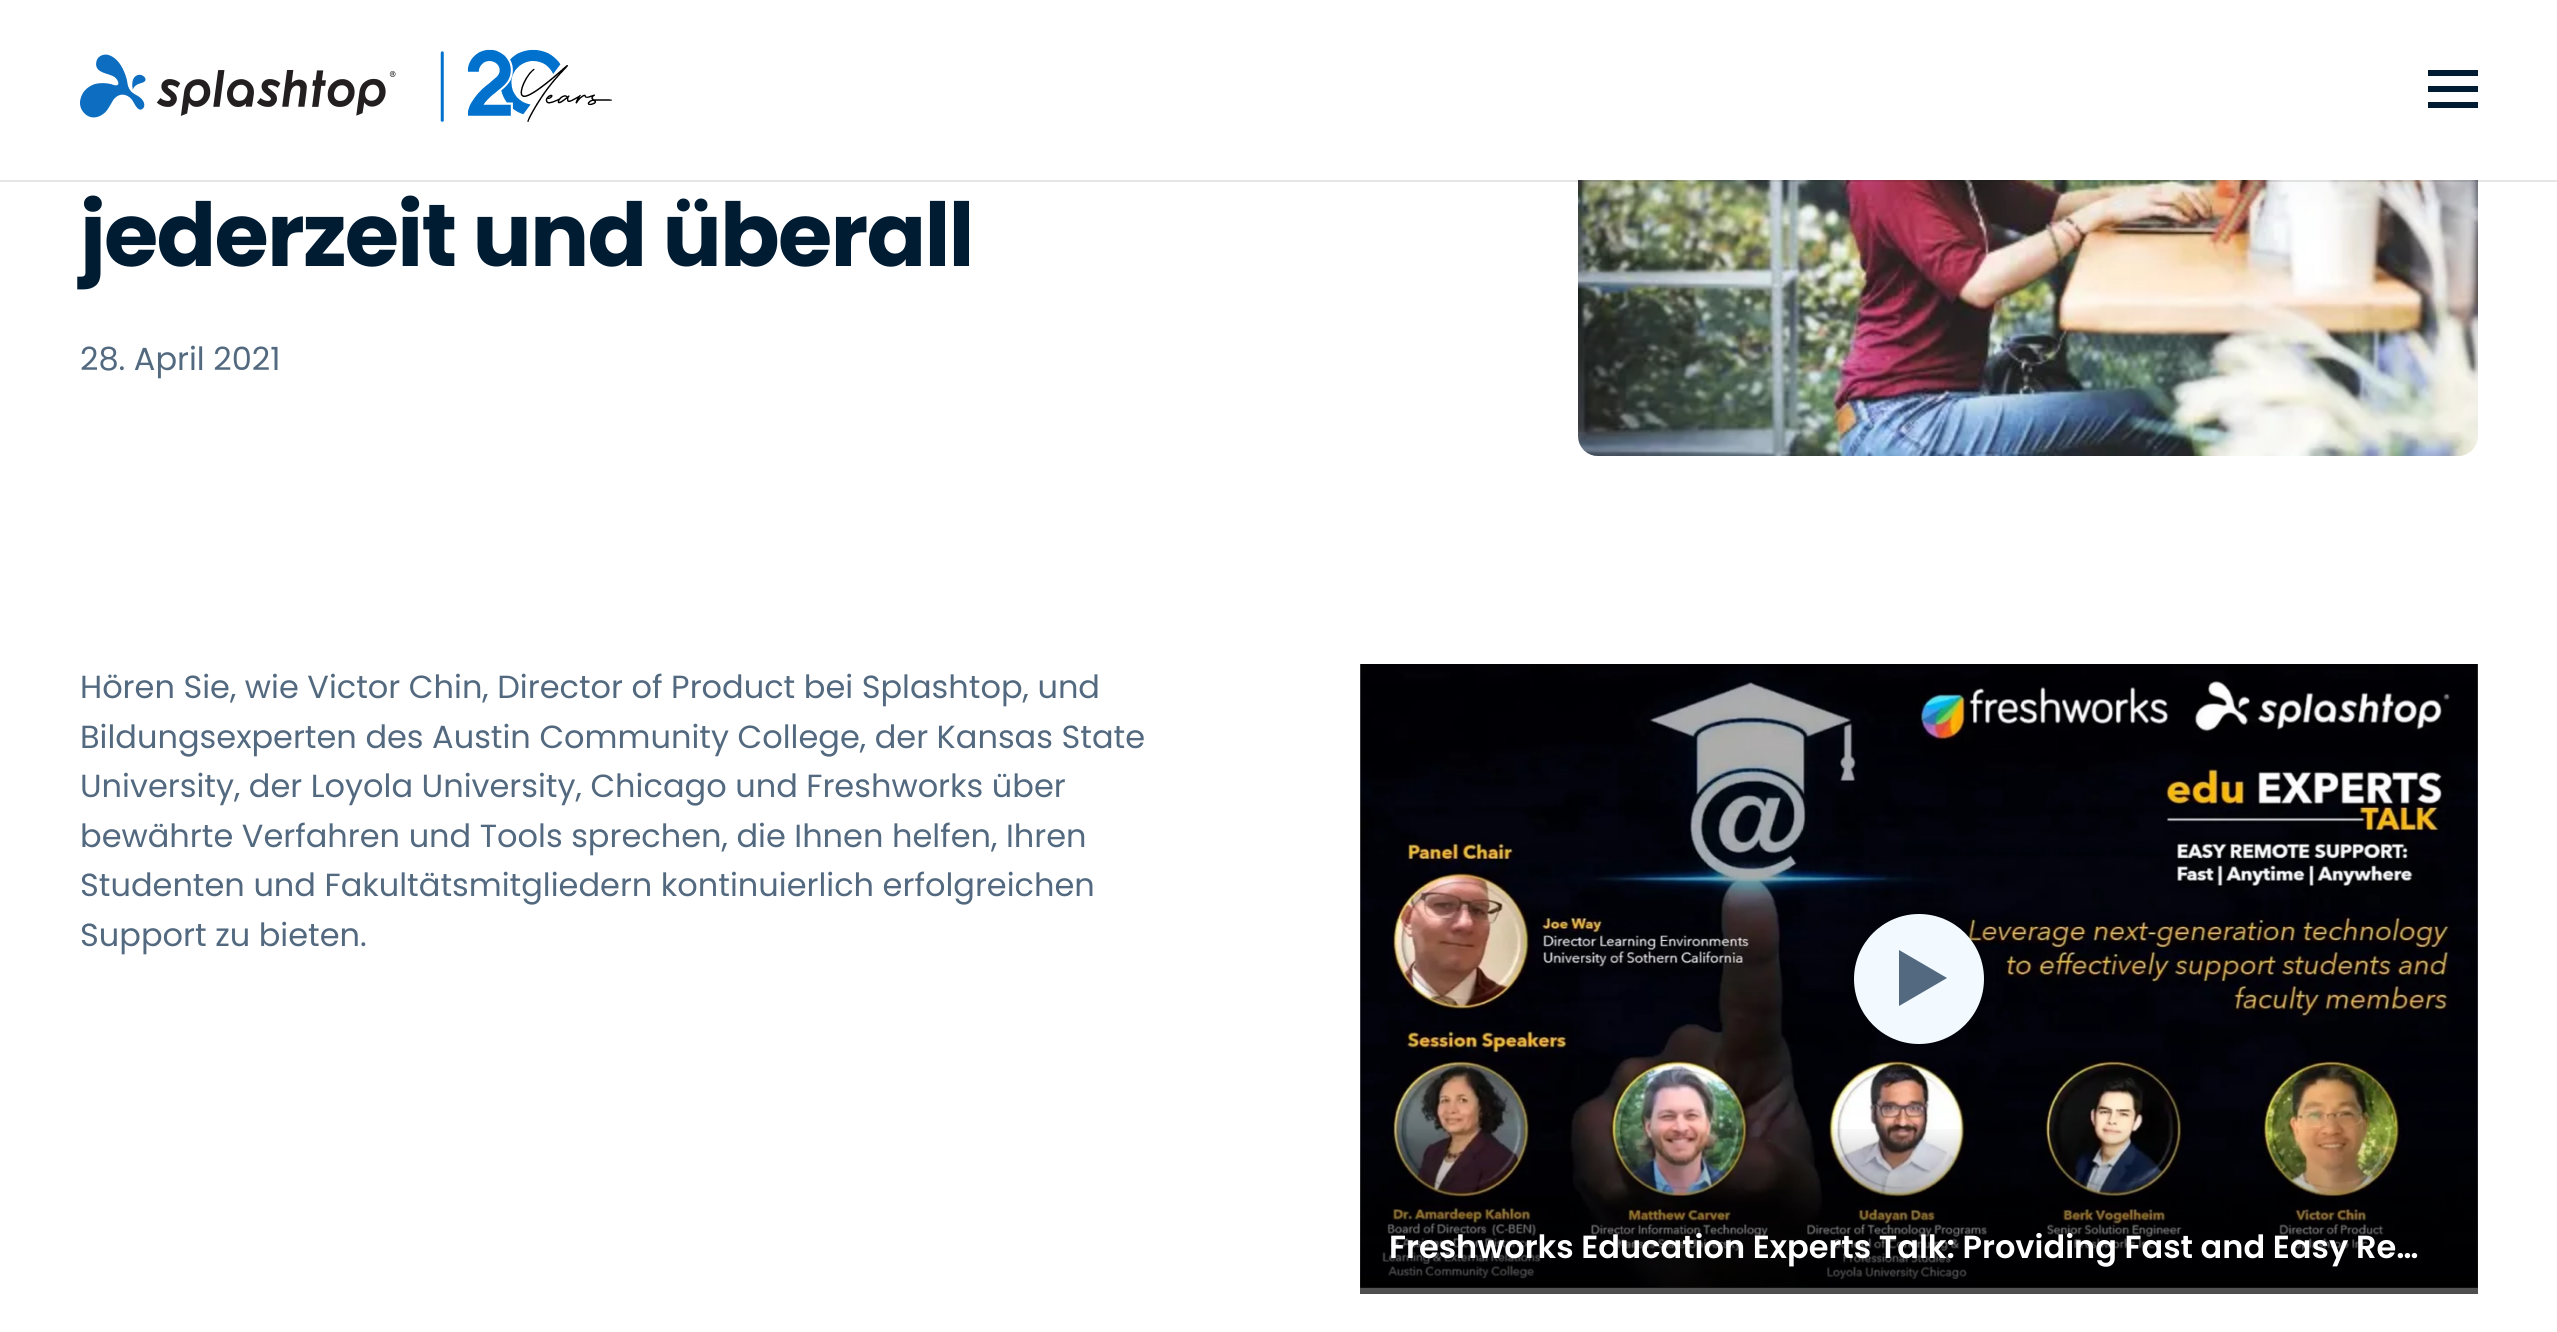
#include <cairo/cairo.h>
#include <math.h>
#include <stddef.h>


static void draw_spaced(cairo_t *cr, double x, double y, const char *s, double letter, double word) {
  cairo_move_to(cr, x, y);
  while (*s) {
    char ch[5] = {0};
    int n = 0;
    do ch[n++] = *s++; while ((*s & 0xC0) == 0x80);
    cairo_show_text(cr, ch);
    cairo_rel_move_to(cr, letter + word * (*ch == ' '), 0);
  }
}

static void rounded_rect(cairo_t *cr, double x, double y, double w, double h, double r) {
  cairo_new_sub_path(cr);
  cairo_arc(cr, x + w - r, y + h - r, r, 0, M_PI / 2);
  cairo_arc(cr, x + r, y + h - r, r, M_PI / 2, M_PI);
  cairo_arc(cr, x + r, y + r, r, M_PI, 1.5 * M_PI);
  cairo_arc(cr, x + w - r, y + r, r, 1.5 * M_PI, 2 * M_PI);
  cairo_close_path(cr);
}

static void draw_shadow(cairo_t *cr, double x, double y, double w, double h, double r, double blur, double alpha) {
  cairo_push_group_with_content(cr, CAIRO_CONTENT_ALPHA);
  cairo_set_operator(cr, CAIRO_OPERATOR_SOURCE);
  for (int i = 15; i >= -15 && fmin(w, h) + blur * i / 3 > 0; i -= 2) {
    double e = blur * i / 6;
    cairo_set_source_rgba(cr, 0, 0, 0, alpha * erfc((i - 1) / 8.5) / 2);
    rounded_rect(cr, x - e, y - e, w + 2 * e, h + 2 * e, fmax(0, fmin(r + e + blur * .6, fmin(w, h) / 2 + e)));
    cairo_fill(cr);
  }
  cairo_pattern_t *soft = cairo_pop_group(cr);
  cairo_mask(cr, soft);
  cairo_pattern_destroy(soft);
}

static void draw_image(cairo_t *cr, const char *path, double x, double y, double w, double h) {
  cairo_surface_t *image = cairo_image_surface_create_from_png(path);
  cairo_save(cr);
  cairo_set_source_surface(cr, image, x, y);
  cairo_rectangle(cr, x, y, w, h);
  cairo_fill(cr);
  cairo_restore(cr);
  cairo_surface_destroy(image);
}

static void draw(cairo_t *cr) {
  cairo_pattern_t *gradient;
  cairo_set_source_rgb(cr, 1, 1, 1);
  cairo_paint(cr);
  draw_image(cr, "images/3.png", 1578, 180, 900, 276);
  cairo_set_source_rgba(cr, 0, 0, 0, 0.1);
  cairo_rectangle(cr, 0, 180, 2557, 2);
  cairo_fill(cr);
  draw_image(cr, "images/1.png", 80, 54, 316, 64);
  draw_image(cr, "images/2.png", 440, 49, 172, 73);
  cairo_set_source_rgb(cr, 0, 28 / 255.0, 51 / 255.0);
  cairo_rectangle(cr, 2428, 70, 50, 6);
  cairo_fill(cr);
  cairo_rectangle(cr, 2428, 86, 50, 6);
  cairo_fill(cr);
  cairo_rectangle(cr, 2428, 102, 50, 6);
  cairo_fill(cr);
  draw_image(cr, "images/4.png", 1360, 664, 1118, 624);
  cairo_set_source_rgb(cr, 0, 0, 0);
  draw_shadow(cr, 1854, 914, 130, 130, 65, 12, 0.5);
  cairo_set_source_rgb(cr, 242 / 255.0, 249 / 255.0, 1);
  cairo_arc(cr, 1919, 979, 65, 0, 2 * M_PI);
  cairo_fill(cr);
  cairo_set_source_rgb(cr, 82 / 255.0, 105 / 255.0, 127 / 255.0);
  cairo_new_path(cr);
  cairo_move_to(cr, 1899, 1006);
  cairo_line_to(cr, 1899, 950);
  cairo_line_to(cr, 1947, 978);
  cairo_close_path(cr);
  cairo_fill(cr);
  gradient = cairo_pattern_create_linear(1919, 1294, 1919, 1124);
  cairo_pattern_add_color_stop_rgba(gradient, 0, 0, 0, 0, 0.7);
  cairo_pattern_add_color_stop_rgba(gradient, 1, 0, 0, 0, 0);
  cairo_set_source(cr, gradient);
  cairo_pattern_destroy(gradient);
  cairo_rectangle(cr, 1360, 1129, 1118, 165);
  cairo_fill(cr);
  cairo_select_font_face(cr, "Poppins", CAIRO_FONT_SLANT_NORMAL, CAIRO_FONT_WEIGHT_BOLD);
  cairo_set_font_size(cr, 88);
  cairo_set_source_rgb(cr, 0, 28 / 255.0, 51 / 255.0);
  draw_spaced(cr, 80, 266, "jederzeit und überall", -1.75, 0);
  cairo_select_font_face(cr, "Poppins", CAIRO_FONT_SLANT_NORMAL, CAIRO_FONT_WEIGHT_NORMAL);
  cairo_set_font_size(cr, 32);
  cairo_set_source_rgb(cr, 82 / 255.0, 105 / 255.0, 127 / 255.0);
  cairo_move_to(cr, 80, 370);
  cairo_show_text(cr, "28. April 2021");
  cairo_move_to(cr, 80, 698);
  cairo_show_text(cr, "Hören Sie, wie Victor Chin, Director of Product bei Splashtop, und");
  cairo_move_to(cr, 80, 748);
  cairo_show_text(cr, "Bildungsexperten des Austin Community College, der Kansas State");
  cairo_move_to(cr, 80, 797);
  cairo_show_text(cr, "University, der Loyola University, Chicago und Freshworks über");
  cairo_move_to(cr, 80, 847);
  cairo_show_text(cr, "bewährte Verfahren und Tools sprechen, die Ihnen helfen, Ihren");
  cairo_move_to(cr, 80, 896);
  cairo_show_text(cr, "Studenten und Fakultätsmitgliedern kontinuierlich erfolgreichen");
  cairo_move_to(cr, 80, 946);
  cairo_show_text(cr, "Support zu bieten.");
  cairo_select_font_face(cr, "Poppins SemiBold", CAIRO_FONT_SLANT_NORMAL, CAIRO_FONT_WEIGHT_NORMAL);
  cairo_set_source_rgb(cr, 1, 1, 1);
  cairo_move_to(cr, 1389, 1258);
  cairo_show_text(cr, "Freshworks Education Experts Talk: Providing Fast and Easy Re…");
}

int main(void) {
  cairo_surface_t *surface = cairo_image_surface_create(CAIRO_FORMAT_RGB24, 2557, 1332);
  cairo_t *cr = cairo_create(surface);
  cairo_font_options_t *options = cairo_font_options_create();
  cairo_font_options_set_hint_metrics(options, CAIRO_HINT_METRICS_OFF);
  cairo_font_options_set_hint_style(options, CAIRO_HINT_STYLE_NONE);
  cairo_set_font_options(cr, options);
  cairo_set_miter_limit(cr, 4);
  draw(cr);
  cairo_surface_write_to_png(surface, "out.png");
  cairo_font_options_destroy(options);
  cairo_destroy(cr);
  cairo_surface_destroy(surface);
  return 0;
}
